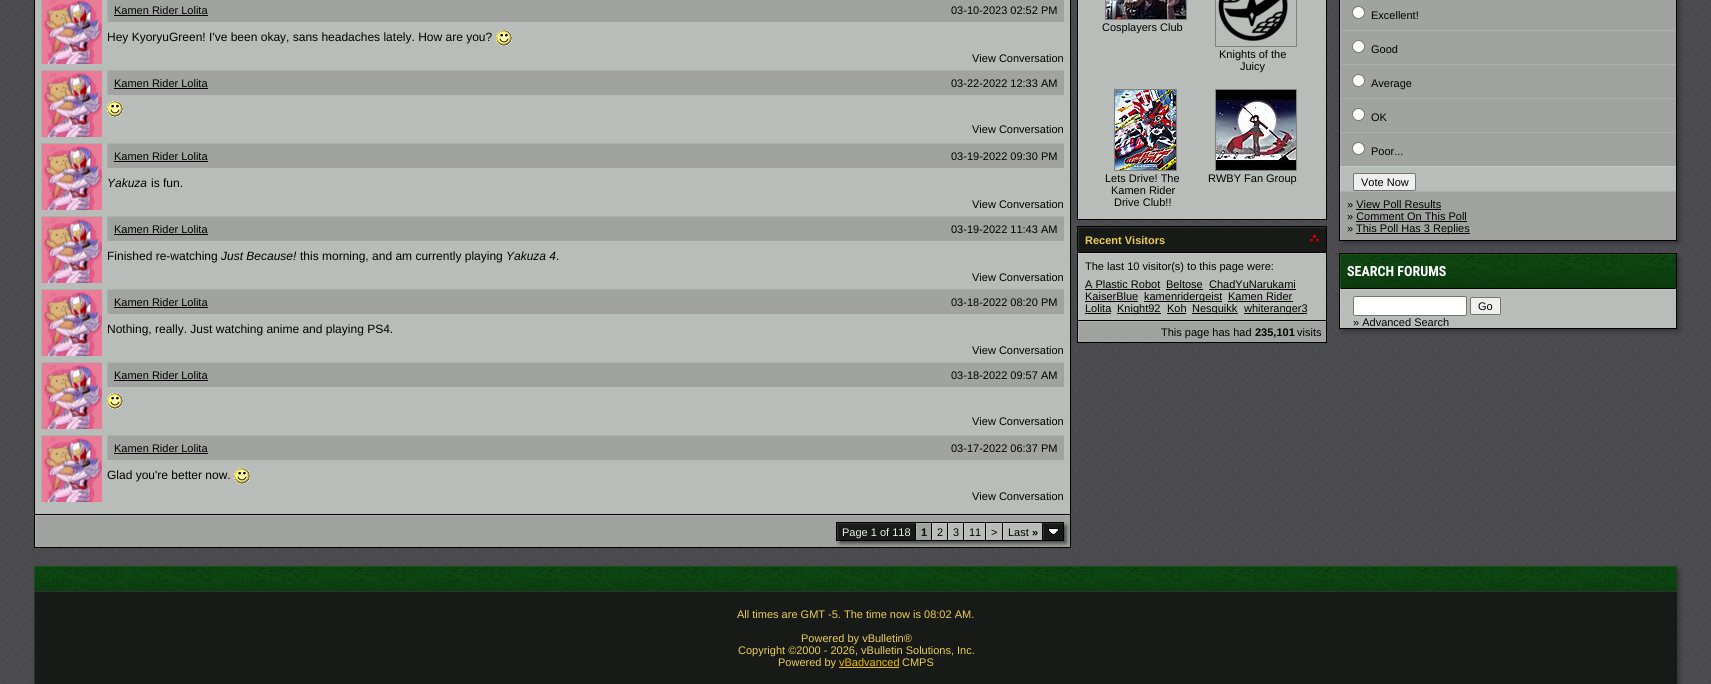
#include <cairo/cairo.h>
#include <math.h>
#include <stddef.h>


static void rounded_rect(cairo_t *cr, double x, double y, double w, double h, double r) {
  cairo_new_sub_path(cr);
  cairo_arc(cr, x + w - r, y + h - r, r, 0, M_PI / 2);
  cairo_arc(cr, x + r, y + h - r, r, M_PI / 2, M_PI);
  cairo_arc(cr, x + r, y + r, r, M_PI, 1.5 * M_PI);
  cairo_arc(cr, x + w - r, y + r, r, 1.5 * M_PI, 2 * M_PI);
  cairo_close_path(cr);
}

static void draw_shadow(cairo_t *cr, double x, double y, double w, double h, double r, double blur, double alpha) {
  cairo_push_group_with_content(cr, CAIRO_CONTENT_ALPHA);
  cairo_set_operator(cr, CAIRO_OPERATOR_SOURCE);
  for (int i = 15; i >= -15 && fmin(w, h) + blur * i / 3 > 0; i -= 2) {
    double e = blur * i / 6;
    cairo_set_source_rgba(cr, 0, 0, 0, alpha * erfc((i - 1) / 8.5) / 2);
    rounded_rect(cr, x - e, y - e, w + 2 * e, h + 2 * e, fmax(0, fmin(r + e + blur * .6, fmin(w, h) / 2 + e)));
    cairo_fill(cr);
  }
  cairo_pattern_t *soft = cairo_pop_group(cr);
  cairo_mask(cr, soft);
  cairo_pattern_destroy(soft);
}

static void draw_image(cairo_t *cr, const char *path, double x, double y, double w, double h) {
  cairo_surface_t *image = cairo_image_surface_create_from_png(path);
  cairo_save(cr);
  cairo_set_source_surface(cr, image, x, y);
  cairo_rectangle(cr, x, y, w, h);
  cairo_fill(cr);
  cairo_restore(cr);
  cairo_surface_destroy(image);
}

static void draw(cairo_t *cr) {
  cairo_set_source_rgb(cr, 1, 1, 1);
  cairo_paint(cr);
  draw_image(cr, "images/1.png", 0, 0, 1711, 684);
  cairo_set_source_rgb(cr, 0, 0, 0);
  cairo_rectangle(cr, 34, 0, 1037, 548);
  cairo_fill(cr);
  cairo_set_source_rgb(cr, 185 / 255.0, 189 / 255.0, 185 / 255.0);
  cairo_rectangle(cr, 35, 0, 1035, 514);
  cairo_fill(cr);
  cairo_set_source_rgb(cr, 172 / 255.0, 176 / 255.0, 173 / 255.0);
  cairo_rectangle(cr, 41, 0, 1, 64);
  cairo_fill(cr);
  draw_image(cr, "images/2.png", 42, 0, 60, 64);
  cairo_set_source_rgb(cr, 160 / 255.0, 163 / 255.0, 160 / 255.0);
  cairo_rectangle(cr, 108, 0, 956, 22);
  cairo_fill(cr);
  cairo_set_source_rgb(cr, 172 / 255.0, 176 / 255.0, 173 / 255.0);
  cairo_rectangle(cr, 107, 0, 1, 22);
  cairo_fill(cr);
  cairo_set_source_rgb(cr, 0, 0, 0);
  cairo_rectangle(cr, 114, 15, 94, 1);
  cairo_fill(cr);
  draw_image(cr, "images/3.png", 496, 30, 16, 16);
  cairo_set_source_rgb(cr, 172 / 255.0, 176 / 255.0, 173 / 255.0);
  cairo_rectangle(cr, 41, 70, 61, 1);
  cairo_fill(cr);
  cairo_rectangle(cr, 41, 70, 1, 67);
  cairo_fill(cr);
  draw_image(cr, "images/4.png", 42, 71, 60, 66);
  cairo_set_source_rgb(cr, 160 / 255.0, 163 / 255.0, 160 / 255.0);
  cairo_rectangle(cr, 108, 71, 956, 24);
  cairo_fill(cr);
  cairo_set_source_rgb(cr, 172 / 255.0, 176 / 255.0, 173 / 255.0);
  cairo_rectangle(cr, 107, 70, 957, 1);
  cairo_fill(cr);
  cairo_rectangle(cr, 107, 70, 1, 25);
  cairo_fill(cr);
  cairo_set_source_rgb(cr, 0, 0, 0);
  cairo_rectangle(cr, 114, 88, 94, 1);
  cairo_fill(cr);
  draw_image(cr, "images/3.png", 107, 101, 16, 16);
  cairo_set_source_rgb(cr, 172 / 255.0, 176 / 255.0, 173 / 255.0);
  cairo_rectangle(cr, 41, 143, 61, 1);
  cairo_fill(cr);
  cairo_rectangle(cr, 41, 143, 1, 67);
  cairo_fill(cr);
  draw_image(cr, "images/4.png", 42, 144, 60, 66);
  cairo_set_source_rgb(cr, 160 / 255.0, 163 / 255.0, 160 / 255.0);
  cairo_rectangle(cr, 108, 144, 956, 24);
  cairo_fill(cr);
  cairo_set_source_rgb(cr, 172 / 255.0, 176 / 255.0, 173 / 255.0);
  cairo_rectangle(cr, 107, 143, 957, 1);
  cairo_fill(cr);
  cairo_rectangle(cr, 107, 143, 1, 25);
  cairo_fill(cr);
  cairo_set_source_rgb(cr, 0, 0, 0);
  cairo_rectangle(cr, 114, 161, 94, 1);
  cairo_fill(cr);
  cairo_set_source_rgb(cr, 172 / 255.0, 176 / 255.0, 173 / 255.0);
  cairo_rectangle(cr, 41, 216, 61, 1);
  cairo_fill(cr);
  cairo_rectangle(cr, 41, 216, 1, 67);
  cairo_fill(cr);
  draw_image(cr, "images/5.png", 42, 217, 60, 66);
  cairo_set_source_rgb(cr, 160 / 255.0, 163 / 255.0, 160 / 255.0);
  cairo_rectangle(cr, 108, 217, 956, 24);
  cairo_fill(cr);
  cairo_set_source_rgb(cr, 172 / 255.0, 176 / 255.0, 173 / 255.0);
  cairo_rectangle(cr, 107, 216, 957, 1);
  cairo_fill(cr);
  cairo_rectangle(cr, 107, 216, 1, 25);
  cairo_fill(cr);
  cairo_set_source_rgb(cr, 0, 0, 0);
  cairo_rectangle(cr, 114, 234, 94, 1);
  cairo_fill(cr);
  cairo_set_source_rgb(cr, 172 / 255.0, 176 / 255.0, 173 / 255.0);
  cairo_rectangle(cr, 41, 289, 61, 1);
  cairo_fill(cr);
  cairo_rectangle(cr, 41, 289, 1, 67);
  cairo_fill(cr);
  draw_image(cr, "images/4.png", 42, 290, 60, 66);
  cairo_set_source_rgb(cr, 160 / 255.0, 163 / 255.0, 160 / 255.0);
  cairo_rectangle(cr, 108, 290, 956, 24);
  cairo_fill(cr);
  cairo_set_source_rgb(cr, 172 / 255.0, 176 / 255.0, 173 / 255.0);
  cairo_rectangle(cr, 107, 289, 957, 1);
  cairo_fill(cr);
  cairo_rectangle(cr, 107, 289, 1, 25);
  cairo_fill(cr);
  cairo_set_source_rgb(cr, 0, 0, 0);
  cairo_rectangle(cr, 114, 307, 94, 1);
  cairo_fill(cr);
  cairo_set_source_rgb(cr, 172 / 255.0, 176 / 255.0, 173 / 255.0);
  cairo_rectangle(cr, 41, 362, 61, 1);
  cairo_fill(cr);
  cairo_rectangle(cr, 41, 362, 1, 67);
  cairo_fill(cr);
  draw_image(cr, "images/4.png", 42, 363, 60, 66);
  cairo_set_source_rgb(cr, 160 / 255.0, 163 / 255.0, 160 / 255.0);
  cairo_rectangle(cr, 108, 363, 956, 24);
  cairo_fill(cr);
  cairo_set_source_rgb(cr, 172 / 255.0, 176 / 255.0, 173 / 255.0);
  cairo_rectangle(cr, 107, 362, 957, 1);
  cairo_fill(cr);
  cairo_rectangle(cr, 107, 362, 1, 25);
  cairo_fill(cr);
  cairo_set_source_rgb(cr, 0, 0, 0);
  cairo_rectangle(cr, 114, 380, 94, 1);
  cairo_fill(cr);
  draw_image(cr, "images/3.png", 107, 393, 16, 16);
  cairo_set_source_rgb(cr, 172 / 255.0, 176 / 255.0, 173 / 255.0);
  cairo_rectangle(cr, 41, 435, 61, 1);
  cairo_fill(cr);
  cairo_rectangle(cr, 41, 435, 1, 67);
  cairo_fill(cr);
  draw_image(cr, "images/4.png", 42, 436, 60, 66);
  cairo_set_source_rgb(cr, 160 / 255.0, 163 / 255.0, 160 / 255.0);
  cairo_rectangle(cr, 108, 436, 956, 24);
  cairo_fill(cr);
  cairo_set_source_rgb(cr, 172 / 255.0, 176 / 255.0, 173 / 255.0);
  cairo_rectangle(cr, 107, 435, 957, 1);
  cairo_fill(cr);
  cairo_rectangle(cr, 107, 435, 1, 25);
  cairo_fill(cr);
  cairo_set_source_rgb(cr, 0, 0, 0);
  cairo_rectangle(cr, 114, 453, 94, 1);
  cairo_fill(cr);
  draw_image(cr, "images/3.png", 234, 468, 16, 16);
  cairo_set_source_rgb(cr, 160 / 255.0, 163 / 255.0, 160 / 255.0);
  cairo_rectangle(cr, 36, 516, 1034, 31);
  cairo_fill(cr);
  cairo_set_source_rgb(cr, 172 / 255.0, 176 / 255.0, 173 / 255.0);
  cairo_rectangle(cr, 35, 515, 1035, 1);
  cairo_fill(cr);
  cairo_rectangle(cr, 35, 515, 1, 32);
  cairo_fill(cr);
  cairo_set_source_rgb(cr, 50 / 255.0, 50 / 255.0, 54 / 255.0);
  draw_shadow(cr, 840, 526, 226, 17, 0, 2.5, 1);
  cairo_set_source_rgb(cr, 0, 0, 0);
  cairo_rectangle(cr, 836, 522, 228, 19);
  cairo_fill(cr);
  cairo_set_source_rgb(cr, 24 / 255.0, 26 / 255.0, 24 / 255.0);
  cairo_rectangle(cr, 838, 524, 77, 16);
  cairo_fill(cr);
  cairo_set_source_rgb(cr, 47 / 255.0, 51 / 255.0, 47 / 255.0);
  cairo_rectangle(cr, 837, 523, 78, 1);
  cairo_fill(cr);
  cairo_rectangle(cr, 837, 523, 1, 17);
  cairo_fill(cr);
  cairo_set_source_rgb(cr, 160 / 255.0, 163 / 255.0, 160 / 255.0);
  cairo_rectangle(cr, 917, 524, 14, 16);
  cairo_fill(cr);
  cairo_set_source_rgb(cr, 172 / 255.0, 176 / 255.0, 173 / 255.0);
  cairo_rectangle(cr, 916, 523, 15, 1);
  cairo_fill(cr);
  cairo_rectangle(cr, 916, 523, 1, 17);
  cairo_fill(cr);
  cairo_set_source_rgb(cr, 185 / 255.0, 189 / 255.0, 185 / 255.0);
  cairo_rectangle(cr, 933, 524, 14, 16);
  cairo_fill(cr);
  cairo_set_source_rgb(cr, 197 / 255.0, 201 / 255.0, 198 / 255.0);
  cairo_rectangle(cr, 932, 523, 15, 1);
  cairo_fill(cr);
  cairo_rectangle(cr, 932, 523, 1, 17);
  cairo_fill(cr);
  cairo_set_source_rgb(cr, 185 / 255.0, 189 / 255.0, 185 / 255.0);
  cairo_rectangle(cr, 949, 524, 14, 16);
  cairo_fill(cr);
  cairo_set_source_rgb(cr, 197 / 255.0, 201 / 255.0, 198 / 255.0);
  cairo_rectangle(cr, 948, 523, 15, 1);
  cairo_fill(cr);
  cairo_rectangle(cr, 948, 523, 1, 17);
  cairo_fill(cr);
  cairo_set_source_rgb(cr, 185 / 255.0, 189 / 255.0, 185 / 255.0);
  cairo_rectangle(cr, 965, 524, 20, 16);
  cairo_fill(cr);
  cairo_set_source_rgb(cr, 197 / 255.0, 201 / 255.0, 198 / 255.0);
  cairo_rectangle(cr, 964, 523, 21, 1);
  cairo_fill(cr);
  cairo_rectangle(cr, 964, 523, 1, 17);
  cairo_fill(cr);
  cairo_set_source_rgb(cr, 185 / 255.0, 189 / 255.0, 185 / 255.0);
  cairo_rectangle(cr, 987, 524, 15, 16);
  cairo_fill(cr);
  cairo_set_source_rgb(cr, 197 / 255.0, 201 / 255.0, 198 / 255.0);
  cairo_rectangle(cr, 986, 523, 16, 1);
  cairo_fill(cr);
  cairo_rectangle(cr, 986, 523, 1, 17);
  cairo_fill(cr);
  cairo_set_source_rgb(cr, 185 / 255.0, 189 / 255.0, 185 / 255.0);
  cairo_rectangle(cr, 1004, 524, 38, 16);
  cairo_fill(cr);
  cairo_set_source_rgb(cr, 197 / 255.0, 201 / 255.0, 198 / 255.0);
  cairo_rectangle(cr, 1003, 523, 39, 1);
  cairo_fill(cr);
  cairo_rectangle(cr, 1003, 523, 1, 17);
  cairo_fill(cr);
  cairo_set_source_rgb(cr, 24 / 255.0, 26 / 255.0, 24 / 255.0);
  cairo_rectangle(cr, 1044, 524, 19, 16);
  cairo_fill(cr);
  cairo_set_source_rgb(cr, 47 / 255.0, 51 / 255.0, 47 / 255.0);
  cairo_rectangle(cr, 1043, 523, 20, 1);
  cairo_fill(cr);
  cairo_rectangle(cr, 1043, 523, 1, 17);
  cairo_fill(cr);
  draw_image(cr, "images/6.png", 1048, 528, 11, 7);
  cairo_set_source_rgb(cr, 0, 0, 0);
  cairo_rectangle(cr, 1077, 0, 250, 220);
  cairo_fill(cr);
  cairo_set_source_rgb(cr, 185 / 255.0, 189 / 255.0, 185 / 255.0);
  cairo_rectangle(cr, 1079, 0, 247, 219);
  cairo_fill(cr);
  cairo_set_source_rgb(cr, 197 / 255.0, 201 / 255.0, 198 / 255.0);
  cairo_rectangle(cr, 1078, 0, 1, 219);
  cairo_fill(cr);
  cairo_rectangle(cr, 1105.5, -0.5, 81, 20);
  cairo_set_source_rgb(cr, 128 / 255.0, 128 / 255.0, 128 / 255.0);
  cairo_set_line_width(cr, 1);
  cairo_stroke(cr);
  draw_image(cr, "images/7.png", 1106, 0, 80, 19);
  cairo_rectangle(cr, 1215.5, -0.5, 81, 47);
  cairo_stroke(cr);
  draw_image(cr, "images/8.png", 1218, 0, 70, 41);
  cairo_rectangle(cr, 1114.5, 89.5, 62, 81);
  cairo_stroke(cr);
  draw_image(cr, "images/9.png", 1115, 90, 61, 80);
  cairo_rectangle(cr, 1215.5, 89.5, 81, 81);
  cairo_stroke(cr);
  draw_image(cr, "images/10.png", 1216, 90, 80, 80);
  cairo_set_source_rgb(cr, 0, 0, 0);
  cairo_rectangle(cr, 1077, 226, 250, 117);
  cairo_fill(cr);
  cairo_set_source_rgb(cr, 24 / 255.0, 26 / 255.0, 24 / 255.0);
  cairo_rectangle(cr, 1079, 228, 247, 24);
  cairo_fill(cr);
  cairo_set_source_rgb(cr, 47 / 255.0, 51 / 255.0, 47 / 255.0);
  cairo_rectangle(cr, 1078, 227, 248, 1);
  cairo_fill(cr);
  cairo_rectangle(cr, 1078, 227, 1, 25);
  cairo_fill(cr);
  draw_image(cr, "images/11.png", 1310, 235, 9, 7);
  cairo_set_source_rgb(cr, 185 / 255.0, 189 / 255.0, 185 / 255.0);
  cairo_rectangle(cr, 1079, 254, 247, 66);
  cairo_fill(cr);
  cairo_set_source_rgb(cr, 197 / 255.0, 201 / 255.0, 198 / 255.0);
  cairo_rectangle(cr, 1078, 253, 248, 1);
  cairo_fill(cr);
  cairo_rectangle(cr, 1078, 253, 1, 67);
  cairo_fill(cr);
  cairo_set_source_rgb(cr, 0, 0, 0);
  cairo_rectangle(cr, 1085, 289, 75, 1);
  cairo_fill(cr);
  cairo_rectangle(cr, 1166, 289, 37, 1);
  cairo_fill(cr);
  cairo_rectangle(cr, 1209, 289, 87, 1);
  cairo_fill(cr);
  cairo_rectangle(cr, 1085, 301, 53, 1);
  cairo_fill(cr);
  cairo_rectangle(cr, 1144, 301, 78, 1);
  cairo_fill(cr);
  cairo_rectangle(cr, 1228, 301, 65, 1);
  cairo_fill(cr);
  cairo_rectangle(cr, 1085, 313, 26, 1);
  cairo_fill(cr);
  cairo_rectangle(cr, 1117, 313, 44, 1);
  cairo_fill(cr);
  cairo_rectangle(cr, 1167, 313, 19, 1);
  cairo_fill(cr);
  cairo_rectangle(cr, 1192, 313, 46, 1);
  cairo_fill(cr);
  cairo_rectangle(cr, 1244, 313, 63, 1);
  cairo_fill(cr);
  cairo_set_source_rgb(cr, 160 / 255.0, 163 / 255.0, 160 / 255.0);
  cairo_rectangle(cr, 1079, 322, 247, 20);
  cairo_fill(cr);
  cairo_set_source_rgb(cr, 172 / 255.0, 176 / 255.0, 173 / 255.0);
  cairo_rectangle(cr, 1078, 321, 248, 1);
  cairo_fill(cr);
  cairo_rectangle(cr, 1078, 321, 1, 21);
  cairo_fill(cr);
  cairo_set_source_rgb(cr, 50 / 255.0, 50 / 255.0, 54 / 255.0);
  draw_shadow(cr, 1343, -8, 336, 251, 0, 2.5, 1);
  cairo_set_source_rgb(cr, 0, 0, 0);
  cairo_rectangle(cr, 1339, 0, 338, 241);
  cairo_fill(cr);
  cairo_set_source_rgb(cr, 160 / 255.0, 163 / 255.0, 160 / 255.0);
  cairo_rectangle(cr, 1341, 0, 335, 30);
  cairo_fill(cr);
  cairo_set_source_rgb(cr, 172 / 255.0, 176 / 255.0, 173 / 255.0);
  cairo_rectangle(cr, 1340, 0, 1, 30);
  cairo_fill(cr);
  cairo_set_source_rgb(cr, 1, 1, 1);
  cairo_arc(cr, 1358.5, 12.5, 6, 0, 2 * M_PI);
  cairo_fill_preserve(cr);
  cairo_set_source_rgb(cr, 118 / 255.0, 118 / 255.0, 118 / 255.0);
  cairo_stroke(cr);
  cairo_set_source_rgb(cr, 160 / 255.0, 163 / 255.0, 160 / 255.0);
  cairo_rectangle(cr, 1341, 31, 335, 33);
  cairo_fill(cr);
  cairo_set_source_rgb(cr, 172 / 255.0, 176 / 255.0, 173 / 255.0);
  cairo_rectangle(cr, 1340, 30, 336, 1);
  cairo_fill(cr);
  cairo_rectangle(cr, 1340, 30, 1, 34);
  cairo_fill(cr);
  cairo_set_source_rgb(cr, 1, 1, 1);
  cairo_arc(cr, 1358.5, 46.5, 6, 0, 2 * M_PI);
  cairo_fill_preserve(cr);
  cairo_set_source_rgb(cr, 118 / 255.0, 118 / 255.0, 118 / 255.0);
  cairo_stroke(cr);
  cairo_set_source_rgb(cr, 160 / 255.0, 163 / 255.0, 160 / 255.0);
  cairo_rectangle(cr, 1341, 65, 335, 33);
  cairo_fill(cr);
  cairo_set_source_rgb(cr, 172 / 255.0, 176 / 255.0, 173 / 255.0);
  cairo_rectangle(cr, 1340, 64, 336, 1);
  cairo_fill(cr);
  cairo_rectangle(cr, 1340, 64, 1, 34);
  cairo_fill(cr);
  cairo_set_source_rgb(cr, 1, 1, 1);
  cairo_arc(cr, 1358.5, 80.5, 6, 0, 2 * M_PI);
  cairo_fill_preserve(cr);
  cairo_set_source_rgb(cr, 118 / 255.0, 118 / 255.0, 118 / 255.0);
  cairo_stroke(cr);
  cairo_set_source_rgb(cr, 160 / 255.0, 163 / 255.0, 160 / 255.0);
  cairo_rectangle(cr, 1341, 99, 335, 33);
  cairo_fill(cr);
  cairo_set_source_rgb(cr, 172 / 255.0, 176 / 255.0, 173 / 255.0);
  cairo_rectangle(cr, 1340, 98, 336, 1);
  cairo_fill(cr);
  cairo_rectangle(cr, 1340, 98, 1, 34);
  cairo_fill(cr);
  cairo_set_source_rgb(cr, 1, 1, 1);
  cairo_arc(cr, 1358.5, 114.5, 6, 0, 2 * M_PI);
  cairo_fill_preserve(cr);
  cairo_set_source_rgb(cr, 118 / 255.0, 118 / 255.0, 118 / 255.0);
  cairo_stroke(cr);
  cairo_set_source_rgb(cr, 160 / 255.0, 163 / 255.0, 160 / 255.0);
  cairo_rectangle(cr, 1341, 133, 335, 33);
  cairo_fill(cr);
  cairo_set_source_rgb(cr, 172 / 255.0, 176 / 255.0, 173 / 255.0);
  cairo_rectangle(cr, 1340, 132, 336, 1);
  cairo_fill(cr);
  cairo_rectangle(cr, 1340, 132, 1, 34);
  cairo_fill(cr);
  cairo_set_source_rgb(cr, 1, 1, 1);
  cairo_arc(cr, 1358.5, 148.5, 6, 0, 2 * M_PI);
  cairo_fill_preserve(cr);
  cairo_set_source_rgb(cr, 118 / 255.0, 118 / 255.0, 118 / 255.0);
  cairo_stroke(cr);
  cairo_set_source_rgb(cr, 185 / 255.0, 189 / 255.0, 185 / 255.0);
  cairo_rectangle(cr, 1341, 167, 335, 24);
  cairo_fill(cr);
  cairo_set_source_rgb(cr, 197 / 255.0, 201 / 255.0, 198 / 255.0);
  cairo_rectangle(cr, 1340, 166, 336, 1);
  cairo_fill(cr);
  cairo_rectangle(cr, 1340, 166, 1, 25);
  cairo_fill(cr);
  cairo_set_source_rgb(cr, 239 / 255.0, 239 / 255.0, 239 / 255.0);
  rounded_rect(cr, 1353.5, 173.5, 62, 17, 1.5);
  cairo_fill_preserve(cr);
  cairo_set_source_rgb(cr, 118 / 255.0, 118 / 255.0, 118 / 255.0);
  cairo_stroke(cr);
  cairo_set_source_rgb(cr, 160 / 255.0, 163 / 255.0, 160 / 255.0);
  cairo_rectangle(cr, 1341, 192, 335, 48);
  cairo_fill(cr);
  cairo_set_source_rgb(cr, 172 / 255.0, 176 / 255.0, 173 / 255.0);
  cairo_rectangle(cr, 1340, 191, 336, 1);
  cairo_fill(cr);
  cairo_rectangle(cr, 1340, 191, 1, 49);
  cairo_fill(cr);
  cairo_set_source_rgb(cr, 0, 0, 0);
  cairo_rectangle(cr, 1356, 209, 85, 1);
  cairo_fill(cr);
  cairo_rectangle(cr, 1356, 221, 111, 1);
  cairo_fill(cr);
  cairo_rectangle(cr, 1356, 233, 114, 1);
  cairo_fill(cr);
  cairo_set_source_rgb(cr, 50 / 255.0, 50 / 255.0, 54 / 255.0);
  draw_shadow(cr, 1343, 257, 336, 74, 0, 2.5, 1);
  cairo_set_source_rgb(cr, 0, 0, 0);
  cairo_rectangle(cr, 1339, 253, 338, 76);
  cairo_fill(cr);
  cairo_set_source_rgb(cr, 11 / 255.0, 55 / 255.0, 13 / 255.0);
  cairo_rectangle(cr, 1341, 287, 335, 1);
  cairo_fill(cr);
  draw_image(cr, "images/12.png", 1341, 255, 335, 32);
  cairo_set_source_rgb(cr, 17 / 255.0, 84 / 255.0, 20 / 255.0);
  cairo_rectangle(cr, 1340, 254, 336, 1);
  cairo_fill(cr);
  cairo_rectangle(cr, 1340, 254, 1, 35);
  cairo_fill(cr);
  cairo_set_source_rgb(cr, 185 / 255.0, 189 / 255.0, 185 / 255.0);
  cairo_rectangle(cr, 1341, 290, 335, 38);
  cairo_fill(cr);
  cairo_set_source_rgb(cr, 197 / 255.0, 201 / 255.0, 198 / 255.0);
  cairo_rectangle(cr, 1340, 289, 336, 1);
  cairo_fill(cr);
  cairo_rectangle(cr, 1340, 289, 1, 39);
  cairo_fill(cr);
  cairo_set_source_rgb(cr, 1, 1, 1);
  rounded_rect(cr, 1353.5, 296.5, 113, 19, 1.5);
  cairo_fill_preserve(cr);
  cairo_set_source_rgb(cr, 118 / 255.0, 118 / 255.0, 118 / 255.0);
  cairo_stroke(cr);
  cairo_set_source_rgb(cr, 239 / 255.0, 239 / 255.0, 239 / 255.0);
  rounded_rect(cr, 1470.5, 297.5, 30, 17, 1.5);
  cairo_fill_preserve(cr);
  cairo_set_source_rgb(cr, 118 / 255.0, 118 / 255.0, 118 / 255.0);
  cairo_stroke(cr);
  cairo_set_source_rgb(cr, 50 / 255.0, 50 / 255.0, 54 / 255.0);
  draw_shadow(cr, 38, 570, 1641, 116, 0, 2.5, 1);
  draw_image(cr, "images/13.png", 35, 567, 1642, 24);
  cairo_set_source_rgb(cr, 17 / 255.0, 84 / 255.0, 20 / 255.0);
  cairo_rectangle(cr, 34, 566, 1643, 1);
  cairo_fill(cr);
  cairo_rectangle(cr, 34, 566, 1, 25);
  cairo_fill(cr);
  cairo_set_source_rgb(cr, 24 / 255.0, 26 / 255.0, 24 / 255.0);
  cairo_rectangle(cr, 35, 592, 1642, 92);
  cairo_fill(cr);
  cairo_set_source_rgb(cr, 47 / 255.0, 51 / 255.0, 47 / 255.0);
  cairo_rectangle(cr, 34, 591, 1643, 1);
  cairo_fill(cr);
  cairo_rectangle(cr, 34, 591, 1, 93);
  cairo_fill(cr);
  cairo_set_source_rgb(cr, 235 / 255.0, 188 / 255.0, 0);
  cairo_rectangle(cr, 839, 667, 60, 1);
  cairo_fill(cr);
  cairo_select_font_face(cr, "Liberation Sans", CAIRO_FONT_SLANT_NORMAL, CAIRO_FONT_WEIGHT_NORMAL);
  cairo_set_font_size(cr, 11);
  cairo_set_source_rgb(cr, 0, 0, 0);
  cairo_move_to(cr, 114, 14);
  cairo_show_text(cr, "Kamen Rider Lolita");
  cairo_move_to(cr, 951, 14);
  cairo_show_text(cr, "03-10-2023 02:52 PM");
  cairo_set_font_size(cr, 12);
  cairo_move_to(cr, 107, 41);
  cairo_show_text(cr, "Hey KyoryuGreen! I've been okay, sans headaches lately. How are you?");
  cairo_set_font_size(cr, 11);
  cairo_move_to(cr, 972, 62);
  cairo_show_text(cr, "View Conversation");
  cairo_move_to(cr, 114, 87);
  cairo_show_text(cr, "Kamen Rider Lolita");
  cairo_move_to(cr, 951, 87);
  cairo_show_text(cr, "03-22-2022 12:33 AM");
  cairo_move_to(cr, 972, 133);
  cairo_show_text(cr, "View Conversation");
  cairo_move_to(cr, 114, 160);
  cairo_show_text(cr, "Kamen Rider Lolita");
  cairo_move_to(cr, 951, 160);
  cairo_show_text(cr, "03-19-2022 09:30 PM");
  cairo_select_font_face(cr, "Liberation Sans", CAIRO_FONT_SLANT_ITALIC, CAIRO_FONT_WEIGHT_NORMAL);
  cairo_set_font_size(cr, 12);
  cairo_move_to(cr, 107, 187);
  cairo_show_text(cr, "Yakuza");
  cairo_select_font_face(cr, "Liberation Sans", CAIRO_FONT_SLANT_NORMAL, CAIRO_FONT_WEIGHT_NORMAL);
  cairo_move_to(cr, 151, 187);
  cairo_show_text(cr, "is fun.");
  cairo_set_font_size(cr, 11);
  cairo_move_to(cr, 972, 208);
  cairo_show_text(cr, "View Conversation");
  cairo_move_to(cr, 114, 233);
  cairo_show_text(cr, "Kamen Rider Lolita");
  cairo_move_to(cr, 951, 233);
  cairo_show_text(cr, "03-19-2022 11:43 AM");
  cairo_set_font_size(cr, 12);
  cairo_move_to(cr, 107, 260);
  cairo_show_text(cr, "Finished re-watching");
  cairo_select_font_face(cr, "Liberation Sans", CAIRO_FONT_SLANT_ITALIC, CAIRO_FONT_WEIGHT_NORMAL);
  cairo_move_to(cr, 221, 260);
  cairo_show_text(cr, "Just Because!");
  cairo_select_font_face(cr, "Liberation Sans", CAIRO_FONT_SLANT_NORMAL, CAIRO_FONT_WEIGHT_NORMAL);
  cairo_move_to(cr, 300, 260);
  cairo_show_text(cr, "this morning, and am currently playing");
  cairo_select_font_face(cr, "Liberation Sans", CAIRO_FONT_SLANT_ITALIC, CAIRO_FONT_WEIGHT_NORMAL);
  cairo_move_to(cr, 506, 260);
  cairo_show_text(cr, "Yakuza 4");
  cairo_select_font_face(cr, "Liberation Sans", CAIRO_FONT_SLANT_NORMAL, CAIRO_FONT_WEIGHT_NORMAL);
  cairo_move_to(cr, 556, 260);
  cairo_show_text(cr, ".");
  cairo_set_font_size(cr, 11);
  cairo_move_to(cr, 972, 281);
  cairo_show_text(cr, "View Conversation");
  cairo_move_to(cr, 114, 306);
  cairo_show_text(cr, "Kamen Rider Lolita");
  cairo_move_to(cr, 951, 306);
  cairo_show_text(cr, "03-18-2022 08:20 PM");
  cairo_set_font_size(cr, 12);
  cairo_move_to(cr, 107, 333);
  cairo_show_text(cr, "Nothing, really. Just watching anime and playing PS4.");
  cairo_set_font_size(cr, 11);
  cairo_move_to(cr, 972, 354);
  cairo_show_text(cr, "View Conversation");
  cairo_move_to(cr, 114, 379);
  cairo_show_text(cr, "Kamen Rider Lolita");
  cairo_move_to(cr, 951, 379);
  cairo_show_text(cr, "03-18-2022 09:57 AM");
  cairo_move_to(cr, 972, 425);
  cairo_show_text(cr, "View Conversation");
  cairo_move_to(cr, 114, 452);
  cairo_show_text(cr, "Kamen Rider Lolita");
  cairo_move_to(cr, 951, 452);
  cairo_show_text(cr, "03-17-2022 06:37 PM");
  cairo_set_font_size(cr, 12);
  cairo_move_to(cr, 107, 479);
  cairo_show_text(cr, "Glad you're better now.");
  cairo_set_font_size(cr, 11);
  cairo_move_to(cr, 972, 500);
  cairo_show_text(cr, "View Conversation");
  cairo_set_source_rgb(cr, 238 / 255.0, 238 / 255.0, 238 / 255.0);
  cairo_move_to(cr, 842, 536);
  cairo_show_text(cr, "Page 1 of 118");
  cairo_select_font_face(cr, "Liberation Sans", CAIRO_FONT_SLANT_NORMAL, CAIRO_FONT_WEIGHT_BOLD);
  cairo_set_source_rgb(cr, 0, 0, 0);
  cairo_move_to(cr, 921, 536);
  cairo_show_text(cr, "1");
  cairo_select_font_face(cr, "Liberation Sans", CAIRO_FONT_SLANT_NORMAL, CAIRO_FONT_WEIGHT_NORMAL);
  cairo_move_to(cr, 937, 536);
  cairo_show_text(cr, "2");
  cairo_move_to(cr, 953, 536);
  cairo_show_text(cr, "3");
  cairo_move_to(cr, 969, 536);
  cairo_show_text(cr, "11");
  cairo_move_to(cr, 991, 536);
  cairo_show_text(cr, ">");
  cairo_move_to(cr, 1008, 536);
  cairo_show_text(cr, "Last");
  cairo_select_font_face(cr, "Liberation Sans", CAIRO_FONT_SLANT_NORMAL, CAIRO_FONT_WEIGHT_BOLD);
  cairo_move_to(cr, 1032, 536);
  cairo_show_text(cr, "»");
  cairo_select_font_face(cr, "Liberation Sans", CAIRO_FONT_SLANT_NORMAL, CAIRO_FONT_WEIGHT_NORMAL);
  cairo_move_to(cr, 1102, 31);
  cairo_show_text(cr, "Cosplayers Club");
  cairo_move_to(cr, 1219, 58);
  cairo_show_text(cr, "Knights of the");
  cairo_move_to(cr, 1240, 70);
  cairo_show_text(cr, "Juicy");
  cairo_move_to(cr, 1105, 182);
  cairo_show_text(cr, "Lets Drive! The");
  cairo_move_to(cr, 1111, 194);
  cairo_show_text(cr, "Kamen Rider");
  cairo_move_to(cr, 1114, 206);
  cairo_show_text(cr, "Drive Club!!");
  cairo_move_to(cr, 1208, 182);
  cairo_show_text(cr, "RWBY Fan Group");
  cairo_select_font_face(cr, "Liberation Sans", CAIRO_FONT_SLANT_NORMAL, CAIRO_FONT_WEIGHT_BOLD);
  cairo_set_source_rgb(cr, 235 / 255.0, 206 / 255.0, 91 / 255.0);
  cairo_move_to(cr, 1085, 244);
  cairo_show_text(cr, "Recent Visitors");
  cairo_select_font_face(cr, "Liberation Sans", CAIRO_FONT_SLANT_NORMAL, CAIRO_FONT_WEIGHT_NORMAL);
  cairo_set_source_rgb(cr, 0, 0, 0);
  cairo_move_to(cr, 1085, 270);
  cairo_show_text(cr, "The last 10 visitor(s) to this page were:");
  cairo_move_to(cr, 1085, 288);
  cairo_show_text(cr, "A Plastic Robot");
  cairo_move_to(cr, 1166, 288);
  cairo_show_text(cr, "Beltose");
  cairo_move_to(cr, 1209, 288);
  cairo_show_text(cr, "ChadYuNarukami");
  cairo_move_to(cr, 1085, 300);
  cairo_show_text(cr, "KaiserBlue");
  cairo_move_to(cr, 1144, 300);
  cairo_show_text(cr, "kamenridergeist");
  cairo_move_to(cr, 1228, 300);
  cairo_show_text(cr, "Kamen Rider");
  cairo_move_to(cr, 1085, 312);
  cairo_show_text(cr, "Lolita");
  cairo_move_to(cr, 1117, 312);
  cairo_show_text(cr, "Knight92");
  cairo_move_to(cr, 1167, 312);
  cairo_show_text(cr, "Koh");
  cairo_move_to(cr, 1192, 312);
  cairo_show_text(cr, "Nesquikk");
  cairo_move_to(cr, 1244, 312);
  cairo_show_text(cr, "whiteranger3");
  cairo_move_to(cr, 1161, 336);
  cairo_show_text(cr, "This page has had");
  cairo_select_font_face(cr, "Liberation Sans", CAIRO_FONT_SLANT_NORMAL, CAIRO_FONT_WEIGHT_BOLD);
  cairo_move_to(cr, 1255, 336);
  cairo_show_text(cr, "235,101");
  cairo_select_font_face(cr, "Liberation Sans", CAIRO_FONT_SLANT_NORMAL, CAIRO_FONT_WEIGHT_NORMAL);
  cairo_move_to(cr, 1297, 336);
  cairo_show_text(cr, "visits");
  cairo_move_to(cr, 1371, 19);
  cairo_show_text(cr, "Excellent!");
  cairo_move_to(cr, 1371, 53);
  cairo_show_text(cr, "Good");
  cairo_move_to(cr, 1371, 87);
  cairo_show_text(cr, "Average");
  cairo_move_to(cr, 1371, 121);
  cairo_show_text(cr, "OK");
  cairo_move_to(cr, 1371, 155);
  cairo_show_text(cr, "Poor...");
  cairo_move_to(cr, 1361, 186);
  cairo_show_text(cr, "Vote Now");
  cairo_move_to(cr, 1347, 208);
  cairo_show_text(cr, "» View Poll Results");
  cairo_move_to(cr, 1347, 220);
  cairo_show_text(cr, "» Comment On This Poll");
  cairo_move_to(cr, 1347, 232);
  cairo_show_text(cr, "»");
  cairo_move_to(cr, 1356, 232);
  cairo_show_text(cr, "This Poll Has 3 Replies");
  cairo_select_font_face(cr, "Roboto Condensed", CAIRO_FONT_SLANT_NORMAL, CAIRO_FONT_WEIGHT_BOLD);
  cairo_set_font_size(cr, 14);
  cairo_set_source_rgb(cr, 1, 1, 1);
  cairo_move_to(cr, 1347, 276);
  cairo_show_text(cr, "SEARCH FORUMS");
  cairo_select_font_face(cr, "Liberation Sans", CAIRO_FONT_SLANT_NORMAL, CAIRO_FONT_WEIGHT_NORMAL);
  cairo_set_font_size(cr, 11);
  cairo_set_source_rgb(cr, 0, 0, 0);
  cairo_move_to(cr, 1478, 310);
  cairo_show_text(cr, "Go");
  cairo_move_to(cr, 1353, 326);
  cairo_show_text(cr, "» Advanced Search");
  cairo_set_source_rgb(cr, 235 / 255.0, 206 / 255.0, 91 / 255.0);
  cairo_move_to(cr, 737, 618);
  cairo_show_text(cr, "All times are GMT -5. The time now is 08:02 AM.");
  cairo_move_to(cr, 801, 642);
  cairo_show_text(cr, "Powered by vBulletin®");
  cairo_move_to(cr, 738, 654);
  cairo_show_text(cr, "Copyright ©2000 - 2026, vBulletin Solutions, Inc.");
  cairo_move_to(cr, 778, 666);
  cairo_show_text(cr, "Powered by");
  cairo_set_source_rgb(cr, 235 / 255.0, 188 / 255.0, 0);
  cairo_move_to(cr, 839, 666);
  cairo_show_text(cr, "vBadvanced");
  cairo_set_source_rgb(cr, 235 / 255.0, 206 / 255.0, 91 / 255.0);
  cairo_move_to(cr, 902, 666);
  cairo_show_text(cr, "CMPS");
}

int main(void) {
  cairo_surface_t *surface = cairo_image_surface_create(CAIRO_FORMAT_RGB24, 1711, 684);
  cairo_t *cr = cairo_create(surface);
  cairo_font_options_t *options = cairo_font_options_create();
  cairo_font_options_set_hint_metrics(options, CAIRO_HINT_METRICS_OFF);
  cairo_font_options_set_hint_style(options, CAIRO_HINT_STYLE_NONE);
  cairo_set_font_options(cr, options);
  cairo_set_miter_limit(cr, 4);
  draw(cr);
  cairo_surface_write_to_png(surface, "out.png");
  cairo_font_options_destroy(options);
  cairo_destroy(cr);
  cairo_surface_destroy(surface);
  return 0;
}
